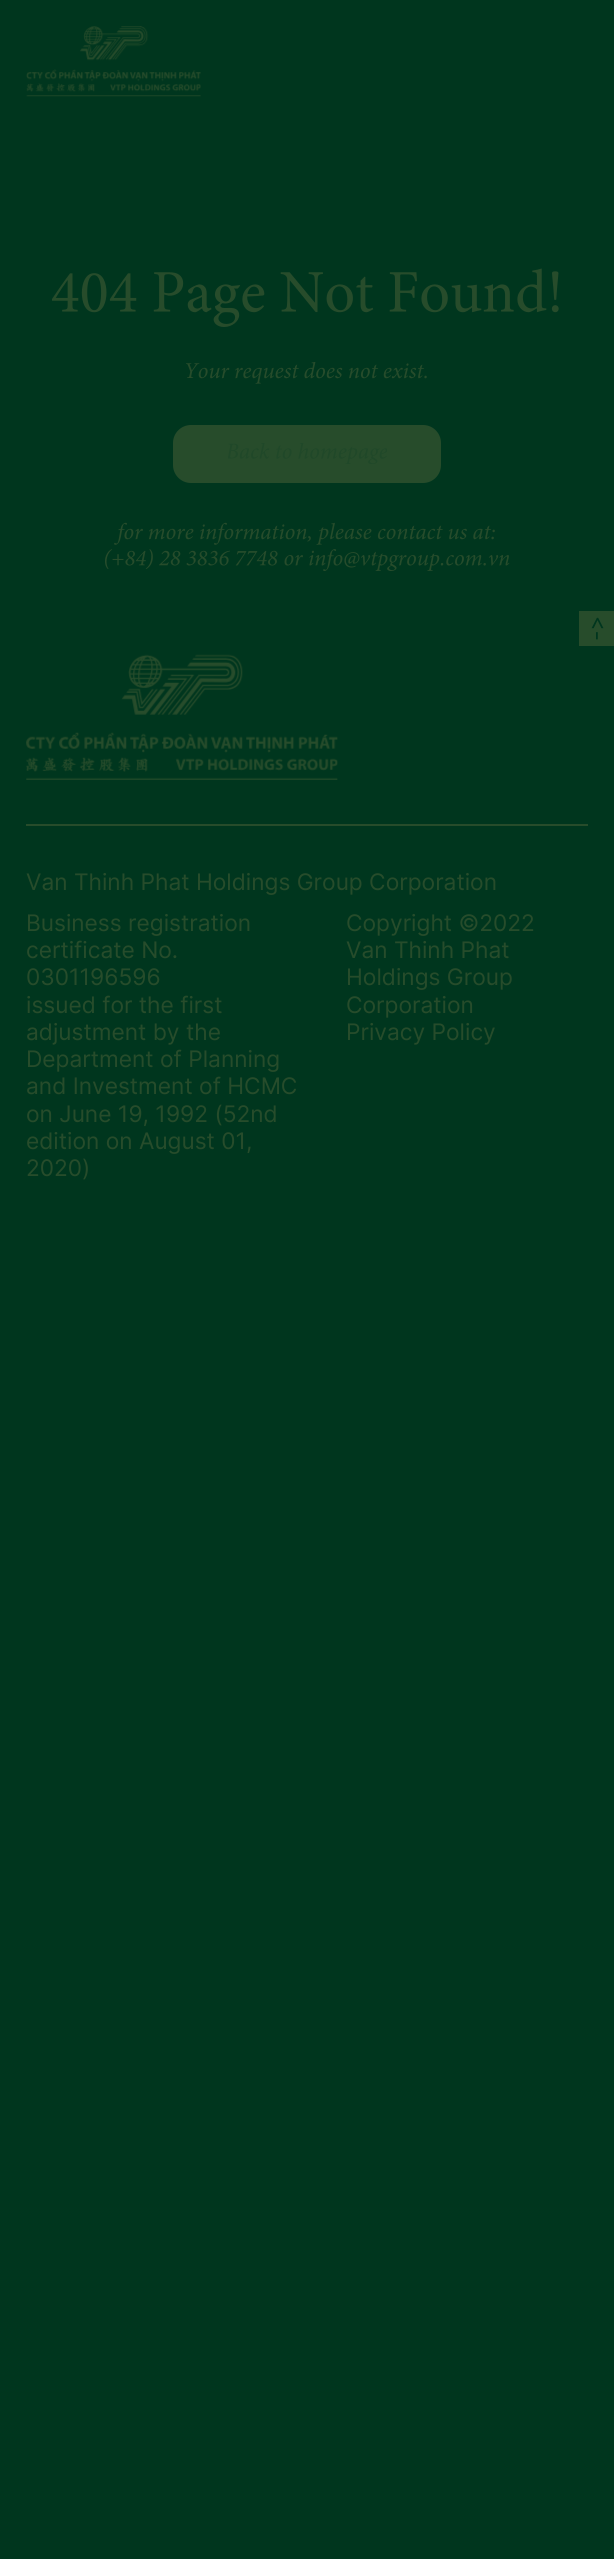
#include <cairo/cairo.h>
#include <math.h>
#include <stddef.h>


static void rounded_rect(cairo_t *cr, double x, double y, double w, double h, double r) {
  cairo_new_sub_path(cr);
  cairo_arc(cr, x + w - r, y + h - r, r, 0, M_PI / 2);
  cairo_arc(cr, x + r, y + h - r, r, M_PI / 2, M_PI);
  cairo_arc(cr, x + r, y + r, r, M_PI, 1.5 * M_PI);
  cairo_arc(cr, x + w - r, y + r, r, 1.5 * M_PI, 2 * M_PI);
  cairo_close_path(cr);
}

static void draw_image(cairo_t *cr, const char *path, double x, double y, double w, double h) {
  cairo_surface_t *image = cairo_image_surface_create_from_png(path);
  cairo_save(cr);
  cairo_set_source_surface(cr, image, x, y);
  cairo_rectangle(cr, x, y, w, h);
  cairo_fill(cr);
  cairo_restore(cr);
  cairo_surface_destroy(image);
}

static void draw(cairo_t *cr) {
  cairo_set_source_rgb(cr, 0, 54 / 255.0, 30 / 255.0);
  cairo_paint(cr);
  draw_image(cr, "images/1.png", 26, 26, 175, 71);
  draw_image(cr, "images/2.png", 52, 268, 507, 59);
  draw_image(cr, "images/3.png", 186, 362, 241, 22);
  cairo_set_source_rgb(cr, 39 / 255.0, 76 / 255.0, 43 / 255.0);
  rounded_rect(cr, 173, 425, 268, 58, 18);
  cairo_fill(cr);
  draw_image(cr, "images/4.png", 228, 443, 159, 21);
  draw_image(cr, "images/5.png", 114, 522, 381, 23);
  draw_image(cr, "images/6.png", 105, 549, 173, 20);
  draw_image(cr, "images/7.png", 284, 555, 19, 11);
  draw_image(cr, "images/8.png", 309, 549, 201, 22);
  cairo_rectangle(cr, 579, 611, 35, 35);
  cairo_fill(cr);
  draw_image(cr, "images/9.png", 26, 654, 312, 126);
  cairo_rectangle(cr, 26, 824, 562, 2);
  cairo_fill(cr);
  cairo_select_font_face(cr, "Inter", CAIRO_FONT_SLANT_NORMAL, CAIRO_FONT_WEIGHT_NORMAL);
  cairo_set_font_size(cr, 22.75);
  cairo_set_source_rgb(cr, 0, 54 / 255.0, 30 / 255.0);
  cairo_save(cr);
  cairo_translate(cr, 604, 641);
  cairo_rotate(cr, -90 * M_PI / 180);
  cairo_move_to(cr, 0, 0);
  cairo_show_text(cr, "->");
  cairo_restore(cr);
  cairo_set_source_rgb(cr, 39 / 255.0, 76 / 255.0, 43 / 255.0);
  cairo_move_to(cr, 26, 890);
  cairo_show_text(cr, "Van Thinh Phat Holdings Group Corporation");
  cairo_move_to(cr, 26, 931);
  cairo_show_text(cr, "Business registration");
  cairo_move_to(cr, 26, 958);
  cairo_show_text(cr, "certificate No.");
  cairo_move_to(cr, 26, 985);
  cairo_show_text(cr, "0301196596");
  cairo_move_to(cr, 26, 1013);
  cairo_show_text(cr, "issued for the first");
  cairo_move_to(cr, 26, 1040);
  cairo_show_text(cr, "adjustment by the");
  cairo_move_to(cr, 26, 1067);
  cairo_show_text(cr, "Department of Planning");
  cairo_move_to(cr, 26, 1094);
  cairo_show_text(cr, "and Investment of HCMC");
  cairo_move_to(cr, 26, 1122);
  cairo_show_text(cr, "on June 19, 1992 (52nd");
  cairo_move_to(cr, 26, 1149);
  cairo_show_text(cr, "edition on August 01,");
  cairo_move_to(cr, 26, 1176);
  cairo_show_text(cr, "2020)");
  cairo_move_to(cr, 346, 931);
  cairo_show_text(cr, "Copyright ©2022");
  cairo_move_to(cr, 346, 958);
  cairo_show_text(cr, "Van Thinh Phat");
  cairo_move_to(cr, 346, 985);
  cairo_show_text(cr, "Holdings Group");
  cairo_move_to(cr, 346, 1013);
  cairo_show_text(cr, "Corporation");
  cairo_move_to(cr, 346, 1040);
  cairo_show_text(cr, "Privacy Policy");
}

int main(void) {
  cairo_surface_t *surface = cairo_image_surface_create(CAIRO_FORMAT_RGB24, 614, 2559);
  cairo_t *cr = cairo_create(surface);
  cairo_font_options_t *options = cairo_font_options_create();
  cairo_font_options_set_hint_metrics(options, CAIRO_HINT_METRICS_OFF);
  cairo_font_options_set_hint_style(options, CAIRO_HINT_STYLE_NONE);
  cairo_set_font_options(cr, options);
  cairo_set_miter_limit(cr, 4);
  draw(cr);
  cairo_surface_write_to_png(surface, "out.png");
  cairo_font_options_destroy(options);
  cairo_destroy(cr);
  cairo_surface_destroy(surface);
  return 0;
}
